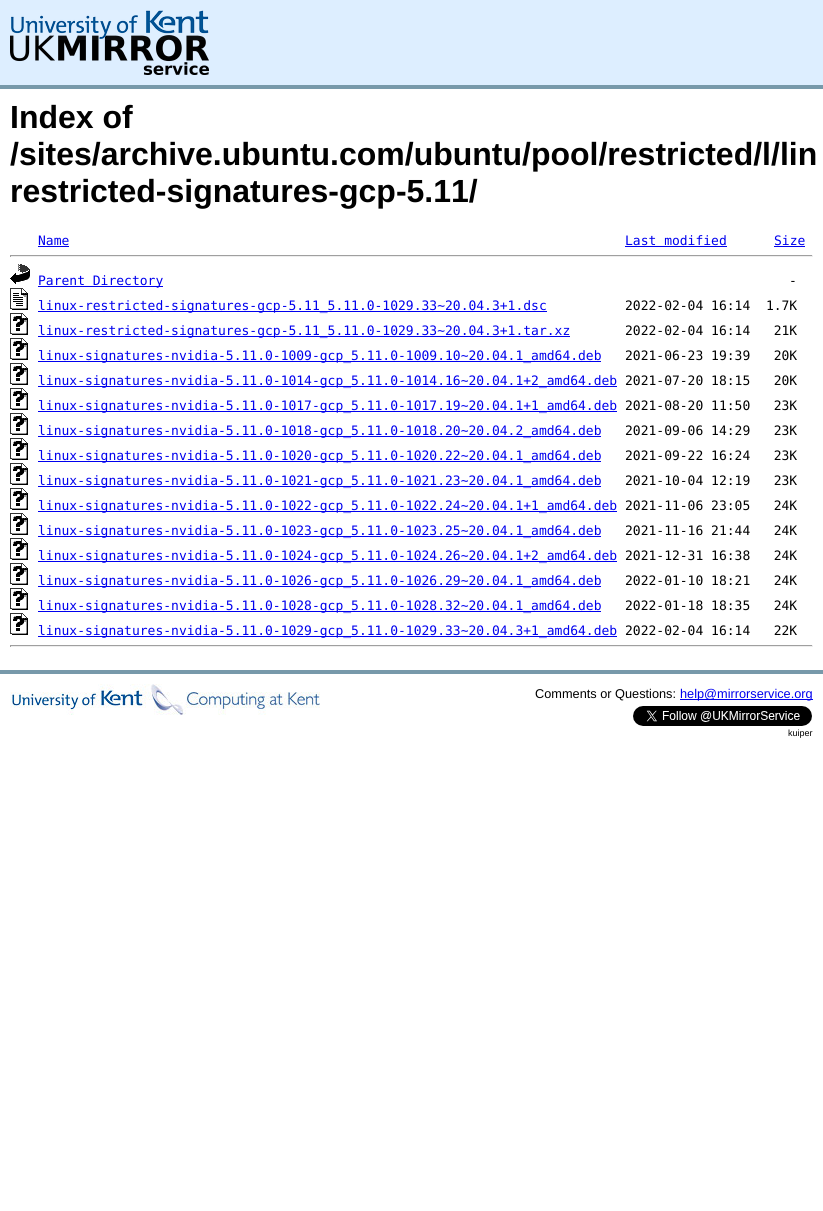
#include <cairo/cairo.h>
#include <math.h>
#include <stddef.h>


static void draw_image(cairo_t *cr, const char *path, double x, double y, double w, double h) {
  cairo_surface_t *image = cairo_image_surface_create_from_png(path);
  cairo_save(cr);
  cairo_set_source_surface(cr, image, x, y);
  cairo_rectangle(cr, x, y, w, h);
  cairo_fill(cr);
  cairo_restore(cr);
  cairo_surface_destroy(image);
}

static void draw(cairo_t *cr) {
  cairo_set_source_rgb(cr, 1, 1, 1);
  cairo_paint(cr);
  cairo_set_source_rgb(cr, 221 / 255.0, 238 / 255.0, 1);
  cairo_rectangle(cr, 0, 0, 823, 85);
  cairo_fill(cr);
  cairo_set_source_rgb(cr, 119 / 255.0, 153 / 255.0, 170 / 255.0);
  cairo_rectangle(cr, 0, 85, 823, 4);
  cairo_fill(cr);
  draw_image(cr, "images/1.png", 10, 10, 199, 65);
  cairo_set_source_rgb(cr, 0, 0, 238 / 255.0);
  cairo_rectangle(cr, 38, 246, 31, 1);
  cairo_fill(cr);
  cairo_rectangle(cr, 625, 246, 102, 1);
  cairo_fill(cr);
  cairo_rectangle(cr, 774, 246, 31, 1);
  cairo_fill(cr);
  cairo_set_source_rgb(cr, 159 / 255.0, 159 / 255.0, 159 / 255.0);
  cairo_rectangle(cr, 10, 255, 803, 1);
  cairo_fill(cr);
  cairo_set_source_rgb(cr, 238 / 255.0, 238 / 255.0, 238 / 255.0);
  cairo_rectangle(cr, 812, 255, 1, 2);
  cairo_fill(cr);
  cairo_rectangle(cr, 10, 256, 803, 1);
  cairo_fill(cr);
  cairo_set_source_rgb(cr, 159 / 255.0, 159 / 255.0, 159 / 255.0);
  cairo_rectangle(cr, 10, 255, 1, 2);
  cairo_fill(cr);
  draw_image(cr, "images/2.png", 10, 264, 20, 20);
  cairo_set_source_rgb(cr, 0, 0, 238 / 255.0);
  cairo_rectangle(cr, 38, 286, 125, 1);
  cairo_fill(cr);
  draw_image(cr, "images/3.png", 10, 288, 18, 22);
  cairo_rectangle(cr, 38, 311, 509, 1);
  cairo_fill(cr);
  draw_image(cr, "images/4.png", 10, 313, 18, 22);
  cairo_rectangle(cr, 38, 336, 532, 1);
  cairo_fill(cr);
  draw_image(cr, "images/4.png", 10, 338, 18, 22);
  cairo_rectangle(cr, 38, 361, 563, 1);
  cairo_fill(cr);
  draw_image(cr, "images/4.png", 10, 363, 18, 22);
  cairo_rectangle(cr, 38, 386, 579, 1);
  cairo_fill(cr);
  draw_image(cr, "images/4.png", 10, 388, 18, 22);
  cairo_rectangle(cr, 38, 411, 579, 1);
  cairo_fill(cr);
  draw_image(cr, "images/4.png", 10, 413, 18, 22);
  cairo_rectangle(cr, 38, 436, 563, 1);
  cairo_fill(cr);
  draw_image(cr, "images/4.png", 10, 438, 18, 22);
  cairo_rectangle(cr, 38, 461, 563, 1);
  cairo_fill(cr);
  draw_image(cr, "images/4.png", 10, 463, 18, 22);
  cairo_rectangle(cr, 38, 486, 563, 1);
  cairo_fill(cr);
  draw_image(cr, "images/4.png", 10, 488, 18, 22);
  cairo_rectangle(cr, 38, 511, 579, 1);
  cairo_fill(cr);
  draw_image(cr, "images/4.png", 10, 513, 18, 22);
  cairo_rectangle(cr, 38, 536, 563, 1);
  cairo_fill(cr);
  draw_image(cr, "images/4.png", 10, 538, 18, 22);
  cairo_rectangle(cr, 38, 561, 579, 1);
  cairo_fill(cr);
  draw_image(cr, "images/4.png", 10, 563, 18, 22);
  cairo_rectangle(cr, 38, 586, 563, 1);
  cairo_fill(cr);
  draw_image(cr, "images/4.png", 10, 588, 18, 22);
  cairo_rectangle(cr, 38, 611, 563, 1);
  cairo_fill(cr);
  draw_image(cr, "images/4.png", 10, 613, 18, 22);
  cairo_rectangle(cr, 38, 636, 579, 1);
  cairo_fill(cr);
  cairo_set_source_rgb(cr, 159 / 255.0, 159 / 255.0, 159 / 255.0);
  cairo_rectangle(cr, 10, 645, 803, 1);
  cairo_fill(cr);
  cairo_set_source_rgb(cr, 238 / 255.0, 238 / 255.0, 238 / 255.0);
  cairo_rectangle(cr, 812, 645, 1, 2);
  cairo_fill(cr);
  cairo_rectangle(cr, 10, 646, 803, 1);
  cairo_fill(cr);
  cairo_set_source_rgb(cr, 159 / 255.0, 159 / 255.0, 159 / 255.0);
  cairo_rectangle(cr, 10, 645, 1, 2);
  cairo_fill(cr);
  cairo_set_source_rgb(cr, 119 / 255.0, 153 / 255.0, 170 / 255.0);
  cairo_rectangle(cr, 0, 670, 823, 4);
  cairo_fill(cr);
  draw_image(cr, "images/5.png", 10, 684, 310, 31);
  cairo_set_source_rgb(cr, 0, 0, 238 / 255.0);
  cairo_rectangle(cr, 680, 699, 133, 1);
  cairo_fill(cr);
  draw_image(cr, "images/6.png", 633, 706, 179, 20);
  cairo_select_font_face(cr, "Liberation Sans", CAIRO_FONT_SLANT_NORMAL, CAIRO_FONT_WEIGHT_BOLD);
  cairo_set_font_size(cr, 32);
  cairo_set_source_rgb(cr, 0, 0, 0);
  cairo_move_to(cr, 10, 128);
  cairo_show_text(cr, "Index of");
  cairo_move_to(cr, 10, 165);
  cairo_show_text(cr, "/sites/archive.ubuntu.com/ubuntu/pool/restricted/l/lin");
  cairo_move_to(cr, 10, 202);
  cairo_show_text(cr, "restricted-signatures-gcp-5.11/");
  cairo_select_font_face(cr, "DejaVu Sans Mono", CAIRO_FONT_SLANT_NORMAL, CAIRO_FONT_WEIGHT_NORMAL);
  cairo_set_font_size(cr, 13);
  cairo_set_source_rgb(cr, 0, 0, 238 / 255.0);
  cairo_move_to(cr, 38, 245);
  cairo_show_text(cr, "Name");
  cairo_move_to(cr, 625, 245);
  cairo_show_text(cr, "Last modified");
  cairo_move_to(cr, 774, 245);
  cairo_show_text(cr, "Size");
  cairo_move_to(cr, 38, 285);
  cairo_show_text(cr, "Parent Directory");
  cairo_set_source_rgb(cr, 0, 0, 0);
  cairo_move_to(cr, 789, 285);
  cairo_show_text(cr, "-");
  cairo_set_source_rgb(cr, 0, 0, 238 / 255.0);
  cairo_move_to(cr, 38, 310);
  cairo_show_text(cr, "linux-restricted-signatures-gcp-5.11_5.11.0-1029.33~20.04.3+1.dsc");
  cairo_set_source_rgb(cr, 0, 0, 0);
  cairo_move_to(cr, 625, 310);
  cairo_show_text(cr, "2022-02-04 16:14  1.7K");
  cairo_set_source_rgb(cr, 0, 0, 238 / 255.0);
  cairo_move_to(cr, 38, 335);
  cairo_show_text(cr, "linux-restricted-signatures-gcp-5.11_5.11.0-1029.33~20.04.3+1.tar.xz");
  cairo_set_source_rgb(cr, 0, 0, 0);
  cairo_move_to(cr, 625, 335);
  cairo_show_text(cr, "2022-02-04 16:14   21K");
  cairo_set_source_rgb(cr, 0, 0, 238 / 255.0);
  cairo_move_to(cr, 38, 360);
  cairo_show_text(cr, "linux-signatures-nvidia-5.11.0-1009-gcp_5.11.0-1009.10~20.04.1_amd64.deb");
  cairo_set_source_rgb(cr, 0, 0, 0);
  cairo_move_to(cr, 625, 360);
  cairo_show_text(cr, "2021-06-23 19:39   20K");
  cairo_set_source_rgb(cr, 0, 0, 238 / 255.0);
  cairo_move_to(cr, 38, 385);
  cairo_show_text(cr, "linux-signatures-nvidia-5.11.0-1014-gcp_5.11.0-1014.16~20.04.1+2_amd64.deb");
  cairo_set_source_rgb(cr, 0, 0, 0);
  cairo_move_to(cr, 625, 385);
  cairo_show_text(cr, "2021-07-20 18:15   20K");
  cairo_set_source_rgb(cr, 0, 0, 238 / 255.0);
  cairo_move_to(cr, 38, 410);
  cairo_show_text(cr, "linux-signatures-nvidia-5.11.0-1017-gcp_5.11.0-1017.19~20.04.1+1_amd64.deb");
  cairo_set_source_rgb(cr, 0, 0, 0);
  cairo_move_to(cr, 625, 410);
  cairo_show_text(cr, "2021-08-20 11:50   23K");
  cairo_set_source_rgb(cr, 0, 0, 238 / 255.0);
  cairo_move_to(cr, 38, 435);
  cairo_show_text(cr, "linux-signatures-nvidia-5.11.0-1018-gcp_5.11.0-1018.20~20.04.2_amd64.deb");
  cairo_set_source_rgb(cr, 0, 0, 0);
  cairo_move_to(cr, 625, 435);
  cairo_show_text(cr, "2021-09-06 14:29   23K");
  cairo_set_source_rgb(cr, 0, 0, 238 / 255.0);
  cairo_move_to(cr, 38, 460);
  cairo_show_text(cr, "linux-signatures-nvidia-5.11.0-1020-gcp_5.11.0-1020.22~20.04.1_amd64.deb");
  cairo_set_source_rgb(cr, 0, 0, 0);
  cairo_move_to(cr, 625, 460);
  cairo_show_text(cr, "2021-09-22 16:24   23K");
  cairo_set_source_rgb(cr, 0, 0, 238 / 255.0);
  cairo_move_to(cr, 38, 485);
  cairo_show_text(cr, "linux-signatures-nvidia-5.11.0-1021-gcp_5.11.0-1021.23~20.04.1_amd64.deb");
  cairo_set_source_rgb(cr, 0, 0, 0);
  cairo_move_to(cr, 625, 485);
  cairo_show_text(cr, "2021-10-04 12:19   23K");
  cairo_set_source_rgb(cr, 0, 0, 238 / 255.0);
  cairo_move_to(cr, 38, 510);
  cairo_show_text(cr, "linux-signatures-nvidia-5.11.0-1022-gcp_5.11.0-1022.24~20.04.1+1_amd64.deb");
  cairo_set_source_rgb(cr, 0, 0, 0);
  cairo_move_to(cr, 625, 510);
  cairo_show_text(cr, "2021-11-06 23:05   24K");
  cairo_set_source_rgb(cr, 0, 0, 238 / 255.0);
  cairo_move_to(cr, 38, 535);
  cairo_show_text(cr, "linux-signatures-nvidia-5.11.0-1023-gcp_5.11.0-1023.25~20.04.1_amd64.deb");
  cairo_set_source_rgb(cr, 0, 0, 0);
  cairo_move_to(cr, 625, 535);
  cairo_show_text(cr, "2021-11-16 21:44   24K");
  cairo_set_source_rgb(cr, 0, 0, 238 / 255.0);
  cairo_move_to(cr, 38, 560);
  cairo_show_text(cr, "linux-signatures-nvidia-5.11.0-1024-gcp_5.11.0-1024.26~20.04.1+2_amd64.deb");
  cairo_set_source_rgb(cr, 0, 0, 0);
  cairo_move_to(cr, 625, 560);
  cairo_show_text(cr, "2021-12-31 16:38   24K");
  cairo_set_source_rgb(cr, 0, 0, 238 / 255.0);
  cairo_move_to(cr, 38, 585);
  cairo_show_text(cr, "linux-signatures-nvidia-5.11.0-1026-gcp_5.11.0-1026.29~20.04.1_amd64.deb");
  cairo_set_source_rgb(cr, 0, 0, 0);
  cairo_move_to(cr, 625, 585);
  cairo_show_text(cr, "2022-01-10 18:21   24K");
  cairo_set_source_rgb(cr, 0, 0, 238 / 255.0);
  cairo_move_to(cr, 38, 610);
  cairo_show_text(cr, "linux-signatures-nvidia-5.11.0-1028-gcp_5.11.0-1028.32~20.04.1_amd64.deb");
  cairo_set_source_rgb(cr, 0, 0, 0);
  cairo_move_to(cr, 625, 610);
  cairo_show_text(cr, "2022-01-18 18:35   24K");
  cairo_set_source_rgb(cr, 0, 0, 238 / 255.0);
  cairo_move_to(cr, 38, 635);
  cairo_show_text(cr, "linux-signatures-nvidia-5.11.0-1029-gcp_5.11.0-1029.33~20.04.3+1_amd64.deb");
  cairo_set_source_rgb(cr, 0, 0, 0);
  cairo_move_to(cr, 625, 635);
  cairo_show_text(cr, "2022-02-04 16:14   22K");
  cairo_select_font_face(cr, "Liberation Sans", CAIRO_FONT_SLANT_NORMAL, CAIRO_FONT_WEIGHT_NORMAL);
  cairo_set_font_size(cr, 12.75);
  cairo_move_to(cr, 535, 698);
  cairo_show_text(cr, "Comments or Questions:");
  cairo_set_source_rgb(cr, 0, 0, 238 / 255.0);
  cairo_move_to(cr, 680, 698);
  cairo_show_text(cr, "help@mirrorservice.org");
  cairo_set_font_size(cr, 9);
  cairo_set_source_rgb(cr, 0, 0, 0);
  cairo_move_to(cr, 788, 736);
  cairo_show_text(cr, "kuiper");
}

int main(void) {
  cairo_surface_t *surface = cairo_image_surface_create(CAIRO_FORMAT_RGB24, 823, 1211);
  cairo_t *cr = cairo_create(surface);
  cairo_font_options_t *options = cairo_font_options_create();
  cairo_font_options_set_hint_metrics(options, CAIRO_HINT_METRICS_OFF);
  cairo_font_options_set_hint_style(options, CAIRO_HINT_STYLE_NONE);
  cairo_set_font_options(cr, options);
  cairo_set_miter_limit(cr, 4);
  draw(cr);
  cairo_surface_write_to_png(surface, "out.png");
  cairo_font_options_destroy(options);
  cairo_destroy(cr);
  cairo_surface_destroy(surface);
  return 0;
}
